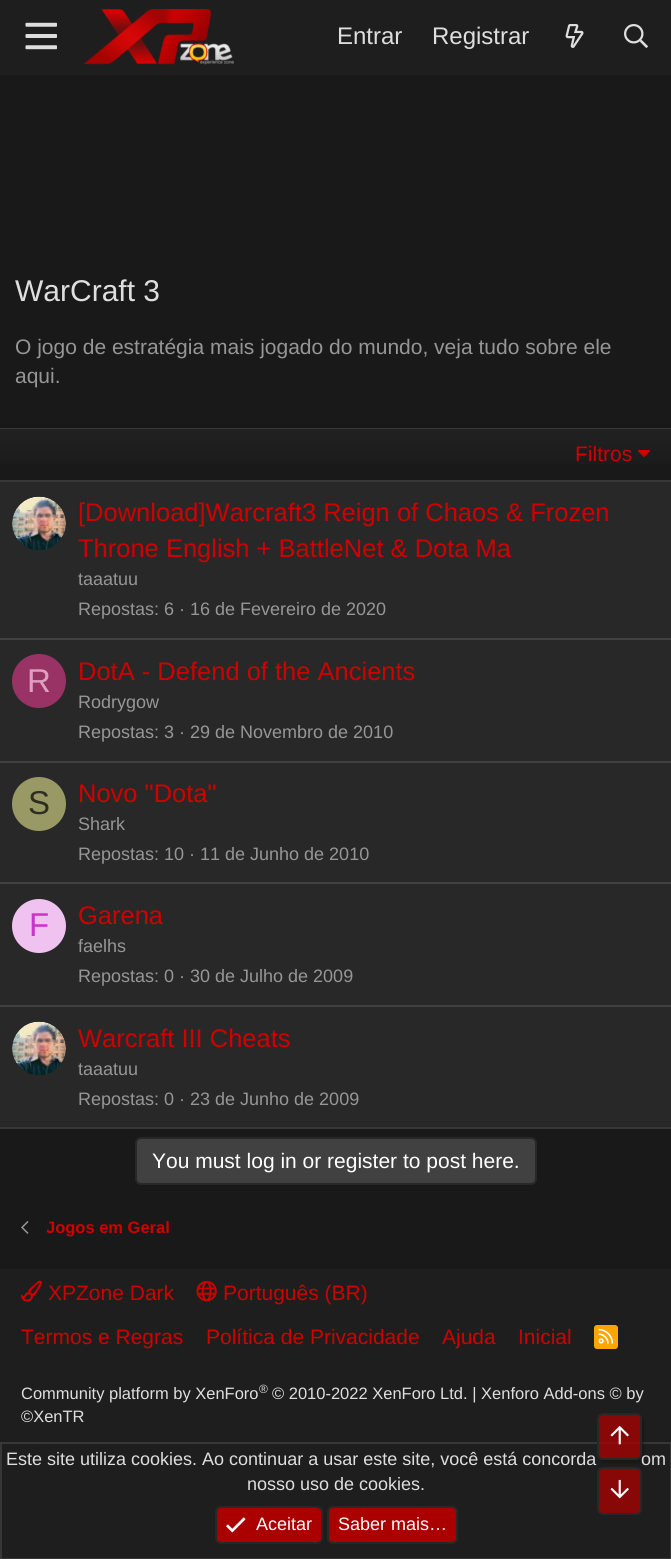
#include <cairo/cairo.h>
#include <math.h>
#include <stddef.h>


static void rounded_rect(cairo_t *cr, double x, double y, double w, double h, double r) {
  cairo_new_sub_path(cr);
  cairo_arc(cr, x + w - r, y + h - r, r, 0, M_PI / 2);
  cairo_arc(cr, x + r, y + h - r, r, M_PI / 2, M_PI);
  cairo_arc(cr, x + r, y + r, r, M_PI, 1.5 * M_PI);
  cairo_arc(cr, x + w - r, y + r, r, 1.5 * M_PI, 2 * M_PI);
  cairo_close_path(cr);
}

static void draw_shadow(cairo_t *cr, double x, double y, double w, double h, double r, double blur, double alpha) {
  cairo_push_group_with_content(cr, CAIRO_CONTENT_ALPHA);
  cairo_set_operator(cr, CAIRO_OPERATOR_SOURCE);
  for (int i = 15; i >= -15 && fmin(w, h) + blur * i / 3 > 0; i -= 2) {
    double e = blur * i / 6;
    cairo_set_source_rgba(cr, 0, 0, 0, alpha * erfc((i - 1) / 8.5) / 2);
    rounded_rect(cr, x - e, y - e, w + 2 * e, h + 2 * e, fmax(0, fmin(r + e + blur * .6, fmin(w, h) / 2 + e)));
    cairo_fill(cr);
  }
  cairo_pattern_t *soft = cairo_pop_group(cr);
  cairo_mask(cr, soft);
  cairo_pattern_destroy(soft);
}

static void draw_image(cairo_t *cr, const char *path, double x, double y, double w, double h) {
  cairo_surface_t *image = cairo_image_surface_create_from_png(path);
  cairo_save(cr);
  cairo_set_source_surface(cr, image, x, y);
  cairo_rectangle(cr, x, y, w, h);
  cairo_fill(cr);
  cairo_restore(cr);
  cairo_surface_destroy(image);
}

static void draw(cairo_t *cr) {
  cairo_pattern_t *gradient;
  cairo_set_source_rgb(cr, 25 / 255.0, 25 / 255.0, 25 / 255.0);
  cairo_paint(cr);
  cairo_set_source_rgb(cr, 30 / 255.0, 30 / 255.0, 30 / 255.0);
  cairo_rectangle(cr, 0, 0, 671, 75);
  cairo_fill(cr);
  draw_image(cr, "images/1.png", 25, 22, 32, 28);
  draw_image(cr, "images/2.png", 84, 9, 150, 56);
  draw_image(cr, "images/3.png", 565, 24, 19, 24);
  draw_image(cr, "images/4.png", 624, 24, 24, 24);
  cairo_set_source_rgb(cr, 40 / 255.0, 40 / 255.0, 40 / 255.0);
  cairo_rectangle(cr, 0, 482, 671, 645);
  cairo_fill(cr);
  cairo_set_source_rgb(cr, 55 / 255.0, 55 / 255.0, 55 / 255.0);
  cairo_rectangle(cr, 0, 428, 671, 1);
  cairo_fill(cr);
  cairo_rectangle(cr, 0, 1127, 671, 2);
  cairo_fill(cr);
  gradient = cairo_pattern_create_linear(336, 480, 336, 429);
  cairo_pattern_add_color_stop_rgba(gradient, 0, 25 / 255.0, 25 / 255.0, 25 / 255.0, 1);
  cairo_pattern_add_color_stop_rgba(gradient, 1, 33 / 255.0, 33 / 255.0, 33 / 255.0, 1);
  cairo_set_source(cr, gradient);
  cairo_pattern_destroy(gradient);
  cairo_rectangle(cr, 0, 429, 671, 35);
  cairo_fill(cr);
  cairo_set_source_rgb(cr, 55 / 255.0, 55 / 255.0, 55 / 255.0);
  cairo_rectangle(cr, 0, 480, 671, 2);
  cairo_fill(cr);
  draw_image(cr, "images/5.png", 638, 450, 13, 7);
  draw_image(cr, "images/6.png", 12, 496, 54, 55);
  cairo_set_source_rgb(cr, 65 / 255.0, 65 / 255.0, 65 / 255.0);
  cairo_rectangle(cr, 0, 638, 671, 2);
  cairo_fill(cr);
  cairo_set_source_rgb(cr, 153 / 255.0, 51 / 255.0, 102 / 255.0);
  cairo_arc(cr, 39, 681, 27, 0, 2 * M_PI);
  cairo_fill(cr);
  cairo_set_source_rgb(cr, 65 / 255.0, 65 / 255.0, 65 / 255.0);
  cairo_rectangle(cr, 0, 761, 671, 2);
  cairo_fill(cr);
  cairo_set_source_rgb(cr, 153 / 255.0, 153 / 255.0, 102 / 255.0);
  cairo_arc(cr, 39, 804, 27, 0, 2 * M_PI);
  cairo_fill(cr);
  cairo_set_source_rgb(cr, 65 / 255.0, 65 / 255.0, 65 / 255.0);
  cairo_rectangle(cr, 0, 882, 671, 2);
  cairo_fill(cr);
  cairo_set_source_rgb(cr, 240 / 255.0, 194 / 255.0, 240 / 255.0);
  cairo_arc(cr, 39, 926, 27, 0, 2 * M_PI);
  cairo_fill(cr);
  cairo_set_source_rgb(cr, 65 / 255.0, 65 / 255.0, 65 / 255.0);
  cairo_rectangle(cr, 0, 1005, 671, 2);
  cairo_fill(cr);
  draw_image(cr, "images/7.png", 12, 1021, 54, 55);
  rounded_rect(cr, 136, 1138, 400, 46, 5);
  cairo_fill_preserve(cr);
  cairo_set_source_rgb(cr, 40 / 255.0, 40 / 255.0, 40 / 255.0);
  cairo_stroke(cr);
  draw_image(cr, "images/8.png", 21, 1221, 8, 13);
  cairo_set_source_rgb(cr, 30 / 255.0, 30 / 255.0, 30 / 255.0);
  cairo_rectangle(cr, 0, 1269, 671, 173);
  cairo_fill(cr);
  draw_image(cr, "images/9.png", 21, 1280, 21, 22);
  draw_image(cr, "images/10.png", 196, 1281, 21, 21);
  cairo_set_source_rgb(cr, 1, 165 / 255.0, 0);
  rounded_rect(cr, 594, 1325, 24, 24, 3);
  cairo_fill(cr);
  draw_image(cr, "images/11.png", 598, 1328, 16, 16);
  cairo_set_source_rgb(cr, 30 / 255.0, 30 / 255.0, 30 / 255.0);
  cairo_rectangle(cr, 1, 1443, 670, 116);
  cairo_fill_preserve(cr);
  cairo_set_source_rgb(cr, 55 / 255.0, 55 / 255.0, 55 / 255.0);
  cairo_stroke(cr);
  cairo_save(cr);
  cairo_set_fill_rule(cr, CAIRO_FILL_RULE_EVEN_ODD);
  cairo_new_path(cr);
  cairo_move_to(cr, 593, 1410);
  cairo_line_to(cr, 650, 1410);
  cairo_line_to(cr, 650, 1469);
  cairo_line_to(cr, 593, 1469);
  cairo_close_path(cr);
  cairo_move_to(cr, 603, 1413);
  cairo_line_to(cr, 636, 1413);
  cairo_curve_to(cr, 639.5, 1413, 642, 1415.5, 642, 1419);
  cairo_line_to(cr, 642, 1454);
  cairo_curve_to(cr, 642, 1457.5, 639.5, 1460, 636, 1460);
  cairo_line_to(cr, 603, 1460);
  cairo_curve_to(cr, 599.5, 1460, 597, 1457.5, 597, 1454);
  cairo_line_to(cr, 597, 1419);
  cairo_curve_to(cr, 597, 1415.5, 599.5, 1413, 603, 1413);
  cairo_close_path(cr);
  cairo_clip(cr);
  cairo_set_source_rgb(cr, 0, 0, 0);
  draw_shadow(cr, 599, 1416, 45, 47, 6, 1.5, 0.25);
  cairo_restore(cr);
  cairo_set_source_rgb(cr, 136 / 255.0, 7 / 255.0, 7 / 255.0);
  rounded_rect(cr, 598, 1468, 43, 46, 5);
  cairo_fill_preserve(cr);
  cairo_set_source_rgb(cr, 40 / 255.0, 40 / 255.0, 40 / 255.0);
  cairo_stroke(cr);
  draw_image(cr, "images/13.png", 610, 1479, 19, 20);
  cairo_set_source_rgb(cr, 171 / 255.0, 0, 0);
  rounded_rect(cr, 216, 1507, 106, 36, 5);
  cairo_fill_preserve(cr);
  cairo_set_source_rgb(cr, 40 / 255.0, 40 / 255.0, 40 / 255.0);
  cairo_stroke(cr);
  draw_image(cr, "images/14.png", 226, 1517, 20, 16);
  cairo_set_source_rgb(cr, 171 / 255.0, 0, 0);
  rounded_rect(cr, 328, 1507, 129, 36, 5);
  cairo_fill_preserve(cr);
  cairo_set_source_rgb(cr, 40 / 255.0, 40 / 255.0, 40 / 255.0);
  cairo_stroke(cr);
  cairo_select_font_face(cr, "Liberation Sans", CAIRO_FONT_SLANT_NORMAL, CAIRO_FONT_WEIGHT_NORMAL);
  cairo_set_font_size(cr, 24);
  cairo_set_source_rgb(cr, 222 / 255.0, 222 / 255.0, 222 / 255.0);
  cairo_move_to(cr, 337, 44);
  cairo_show_text(cr, "Entrar");
  cairo_move_to(cr, 432, 44);
  cairo_show_text(cr, "Registrar");
  cairo_set_font_size(cr, 30);
  cairo_move_to(cr, 15, 301);
  cairo_show_text(cr, "WarCraft 3");
  cairo_set_font_size(cr, 21);
  cairo_set_source_rgb(cr, 150 / 255.0, 150 / 255.0, 150 / 255.0);
  cairo_move_to(cr, 15, 354);
  cairo_show_text(cr, "O jogo de estratégia mais jogado do mundo, veja tudo sobre ele");
  cairo_move_to(cr, 15, 383);
  cairo_show_text(cr, "aqui.");
  cairo_set_source_rgb(cr, 207 / 255.0, 0, 0);
  cairo_move_to(cr, 575, 461);
  cairo_show_text(cr, "Filtros");
  cairo_set_font_size(cr, 25.5);
  cairo_move_to(cr, 78, 521);
  cairo_show_text(cr, "[Download]Warcraft3 Reign of Chaos & Frozen");
  cairo_move_to(cr, 78, 557);
  cairo_show_text(cr, "Throne English + BattleNet & Dota Ma");
  cairo_set_font_size(cr, 18);
  cairo_set_source_rgb(cr, 150 / 255.0, 150 / 255.0, 150 / 255.0);
  cairo_move_to(cr, 78, 585);
  cairo_show_text(cr, "taaatuu");
  cairo_move_to(cr, 78, 615);
  cairo_show_text(cr, "Repostas: 6");
  cairo_move_to(cr, 179, 615);
  cairo_show_text(cr, "· 16 de Fevereiro de 2020");
  cairo_set_font_size(cr, 33);
  cairo_set_source_rgb(cr, 223 / 255.0, 159 / 255.0, 191 / 255.0);
  cairo_move_to(cr, 27, 692);
  cairo_show_text(cr, "R");
  cairo_set_font_size(cr, 25.5);
  cairo_set_source_rgb(cr, 207 / 255.0, 0, 0);
  cairo_move_to(cr, 78, 680);
  cairo_show_text(cr, "DotA - Defend of the Ancients");
  cairo_set_font_size(cr, 18);
  cairo_set_source_rgb(cr, 150 / 255.0, 150 / 255.0, 150 / 255.0);
  cairo_move_to(cr, 78, 708);
  cairo_show_text(cr, "Rodrygow");
  cairo_move_to(cr, 78, 738);
  cairo_show_text(cr, "Repostas: 3");
  cairo_move_to(cr, 179, 738);
  cairo_show_text(cr, "· 29 de Novembro de 2010");
  cairo_set_font_size(cr, 33);
  cairo_set_source_rgb(cr, 46 / 255.0, 46 / 255.0, 31 / 255.0);
  cairo_move_to(cr, 28, 814);
  cairo_show_text(cr, "S");
  cairo_set_font_size(cr, 25.5);
  cairo_set_source_rgb(cr, 207 / 255.0, 0, 0);
  cairo_move_to(cr, 78, 802);
  cairo_show_text(cr, "Novo \"Dota\"");
  cairo_set_font_size(cr, 18);
  cairo_set_source_rgb(cr, 150 / 255.0, 150 / 255.0, 150 / 255.0);
  cairo_move_to(cr, 78, 830);
  cairo_show_text(cr, "Shark");
  cairo_move_to(cr, 78, 860);
  cairo_show_text(cr, "Repostas: 10");
  cairo_move_to(cr, 189, 860);
  cairo_show_text(cr, "· 11 de Junho de 2010");
  cairo_set_font_size(cr, 33);
  cairo_set_source_rgb(cr, 204 / 255.0, 51 / 255.0, 204 / 255.0);
  cairo_move_to(cr, 29, 936);
  cairo_show_text(cr, "F");
  cairo_set_font_size(cr, 25.5);
  cairo_set_source_rgb(cr, 207 / 255.0, 0, 0);
  cairo_move_to(cr, 78, 924);
  cairo_show_text(cr, "Garena");
  cairo_set_font_size(cr, 18);
  cairo_set_source_rgb(cr, 150 / 255.0, 150 / 255.0, 150 / 255.0);
  cairo_move_to(cr, 78, 952);
  cairo_show_text(cr, "faelhs");
  cairo_move_to(cr, 78, 982);
  cairo_show_text(cr, "Repostas: 0");
  cairo_move_to(cr, 179, 982);
  cairo_show_text(cr, "· 30 de Julho de 2009");
  cairo_set_font_size(cr, 25.5);
  cairo_set_source_rgb(cr, 207 / 255.0, 0, 0);
  cairo_move_to(cr, 78, 1047);
  cairo_show_text(cr, "Warcraft III Cheats");
  cairo_set_font_size(cr, 18);
  cairo_set_source_rgb(cr, 150 / 255.0, 150 / 255.0, 150 / 255.0);
  cairo_move_to(cr, 78, 1075);
  cairo_show_text(cr, "taaatuu");
  cairo_move_to(cr, 78, 1105);
  cairo_show_text(cr, "Repostas: 0");
  cairo_move_to(cr, 179, 1105);
  cairo_show_text(cr, "· 23 de Junho de 2009");
  cairo_set_font_size(cr, 21);
  cairo_set_source_rgb(cr, 1, 1, 1);
  cairo_move_to(cr, 152, 1168);
  cairo_show_text(cr, "You must log in or register to post here.");
  cairo_save(cr);
  cairo_rectangle(cr, 47, 1215, 123, 24);
  cairo_clip(cr);
  cairo_select_font_face(cr, "Liberation Sans", CAIRO_FONT_SLANT_NORMAL, CAIRO_FONT_WEIGHT_BOLD);
  cairo_set_font_size(cr, 16.5);
  cairo_set_source_rgb(cr, 207 / 255.0, 0, 0);
  cairo_move_to(cr, 46, 1233);
  cairo_show_text(cr, "Jogos em Geral");
  cairo_restore(cr);
  cairo_set_source_rgb(cr, 207 / 255.0, 0, 0);
  cairo_move_to(cr, 48, 1300);
  cairo_show_text(cr, "XPZone Dark");
  cairo_move_to(cr, 223, 1300);
  cairo_show_text(cr, "Português (BR)");
  cairo_move_to(cr, 21, 1344);
  cairo_show_text(cr, "Termos e Regras");
  cairo_move_to(cr, 206, 1344);
  cairo_show_text(cr, "Política de Privacidade");
  cairo_move_to(cr, 442, 1344);
  cairo_show_text(cr, "Ajuda");
  cairo_move_to(cr, 518, 1344);
  cairo_show_text(cr, "Inicial");
  cairo_set_font_size(cr, 16.5);
  cairo_set_source_rgb(cr, 222 / 255.0, 222 / 255.0, 222 / 255.0);
  cairo_move_to(cr, 21, 1399);
  cairo_show_text(cr, "Community platform by XenForo");
  cairo_set_font_size(cr, 12);
  cairo_move_to(cr, 259, 1393);
  cairo_show_text(cr, "®");
  cairo_set_font_size(cr, 16.5);
  cairo_move_to(cr, 272, 1399);
  cairo_show_text(cr, "© 2010-2022 XenForo Ltd. | Xenforo Add-ons © by");
  cairo_move_to(cr, 21, 1422);
  cairo_show_text(cr, "©XenTR");
  cairo_set_font_size(cr, 18);
  cairo_move_to(cr, 6, 1465);
  cairo_show_text(cr, "Este site utiliza cookies. Ao continuar a usar este site, você está concorda");
  cairo_move_to(cr, 641, 1465);
  cairo_show_text(cr, "om");
  cairo_set_source_rgba(cr, 171 / 255.0, 0, 0, 0.75);
  rounded_rect(cr, 598, 1414, 43, 45, 5);
  cairo_fill_preserve(cr);
  cairo_set_source_rgb(cr, 40 / 255.0, 40 / 255.0, 40 / 255.0);
  cairo_stroke(cr);
  draw_image(cr, "images/12.png", 610, 1426, 19, 19);
  cairo_set_source_rgb(cr, 222 / 255.0, 222 / 255.0, 222 / 255.0);
  cairo_move_to(cr, 247, 1490);
  cairo_show_text(cr, "nosso uso de cookies.");
  cairo_set_source_rgb(cr, 1, 1, 1);
  cairo_move_to(cr, 256, 1530);
  cairo_show_text(cr, "Aceitar");
  cairo_move_to(cr, 338, 1530);
  cairo_show_text(cr, "Saber mais…");
}

int main(void) {
  cairo_surface_t *surface = cairo_image_surface_create(CAIRO_FORMAT_RGB24, 671, 1559);
  cairo_t *cr = cairo_create(surface);
  cairo_font_options_t *options = cairo_font_options_create();
  cairo_font_options_set_hint_metrics(options, CAIRO_HINT_METRICS_OFF);
  cairo_font_options_set_hint_style(options, CAIRO_HINT_STYLE_NONE);
  cairo_set_font_options(cr, options);
  cairo_set_miter_limit(cr, 4);
  draw(cr);
  cairo_surface_write_to_png(surface, "out.png");
  cairo_font_options_destroy(options);
  cairo_destroy(cr);
  cairo_surface_destroy(surface);
  return 0;
}
